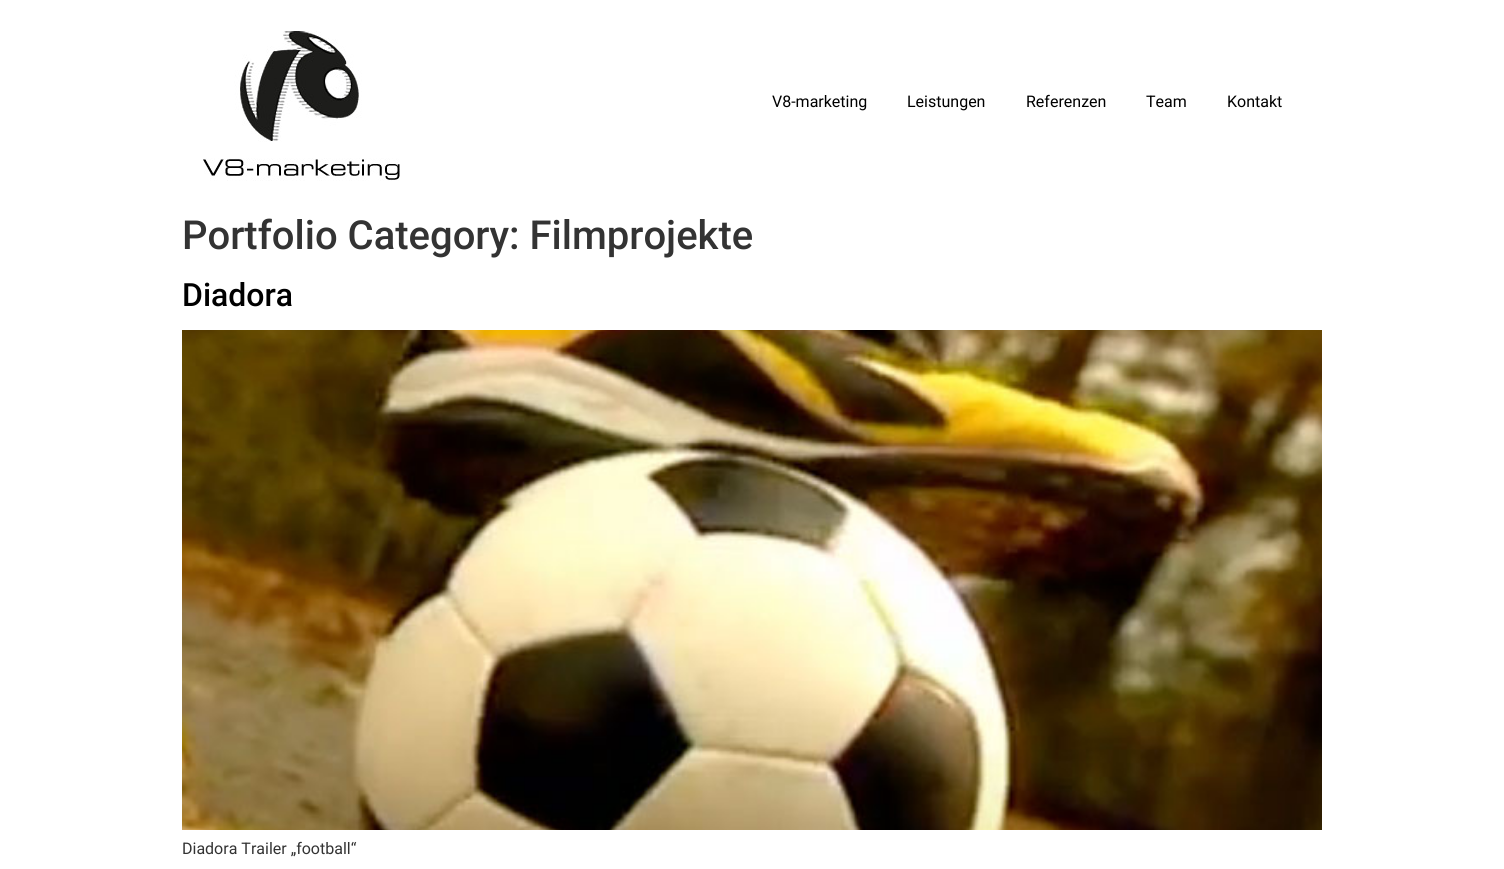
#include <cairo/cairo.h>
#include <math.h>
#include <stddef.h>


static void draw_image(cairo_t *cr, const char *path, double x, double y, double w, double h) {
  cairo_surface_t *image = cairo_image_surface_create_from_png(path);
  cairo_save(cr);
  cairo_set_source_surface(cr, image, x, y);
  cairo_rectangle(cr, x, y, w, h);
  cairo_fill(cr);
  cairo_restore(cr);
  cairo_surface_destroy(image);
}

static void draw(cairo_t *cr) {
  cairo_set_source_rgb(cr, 1, 1, 1);
  cairo_paint(cr);
  draw_image(cr, "images/1.png", 203, 31, 197, 150);
  draw_image(cr, "images/2.png", 182, 330, 1140, 500);
  cairo_select_font_face(cr, "Roboto", CAIRO_FONT_SLANT_NORMAL, CAIRO_FONT_WEIGHT_NORMAL);
  cairo_set_font_size(cr, 16);
  cairo_set_source_rgb(cr, 0, 0, 0);
  cairo_move_to(cr, 772, 107);
  cairo_show_text(cr, "V8-marketing");
  cairo_move_to(cr, 907, 107);
  cairo_show_text(cr, "Leistungen");
  cairo_move_to(cr, 1026, 107);
  cairo_show_text(cr, "Referenzen");
  cairo_move_to(cr, 1146, 107);
  cairo_show_text(cr, "Team");
  cairo_move_to(cr, 1227, 107);
  cairo_show_text(cr, "Kontakt");
  cairo_select_font_face(cr, "Roboto Medium", CAIRO_FONT_SLANT_NORMAL, CAIRO_FONT_WEIGHT_NORMAL);
  cairo_set_font_size(cr, 40);
  cairo_set_source_rgb(cr, 51 / 255.0, 51 / 255.0, 51 / 255.0);
  cairo_move_to(cr, 182, 249);
  cairo_show_text(cr, "Portfolio Category: Filmprojekte");
  cairo_set_font_size(cr, 32);
  cairo_set_source_rgb(cr, 0, 0, 0);
  cairo_move_to(cr, 182, 306);
  cairo_show_text(cr, "Diadora");
  cairo_select_font_face(cr, "Roboto", CAIRO_FONT_SLANT_NORMAL, CAIRO_FONT_WEIGHT_NORMAL);
  cairo_set_font_size(cr, 16);
  cairo_set_source_rgb(cr, 51 / 255.0, 51 / 255.0, 51 / 255.0);
  cairo_move_to(cr, 182, 854);
  cairo_show_text(cr, "Diadora Trailer „football“");
}

int main(void) {
  cairo_surface_t *surface = cairo_image_surface_create(CAIRO_FORMAT_RGB24, 1504, 869);
  cairo_t *cr = cairo_create(surface);
  cairo_font_options_t *options = cairo_font_options_create();
  cairo_font_options_set_hint_metrics(options, CAIRO_HINT_METRICS_OFF);
  cairo_font_options_set_hint_style(options, CAIRO_HINT_STYLE_NONE);
  cairo_set_font_options(cr, options);
  cairo_set_miter_limit(cr, 4);
  draw(cr);
  cairo_surface_write_to_png(surface, "out.png");
  cairo_font_options_destroy(options);
  cairo_destroy(cr);
  cairo_surface_destroy(surface);
  return 0;
}
